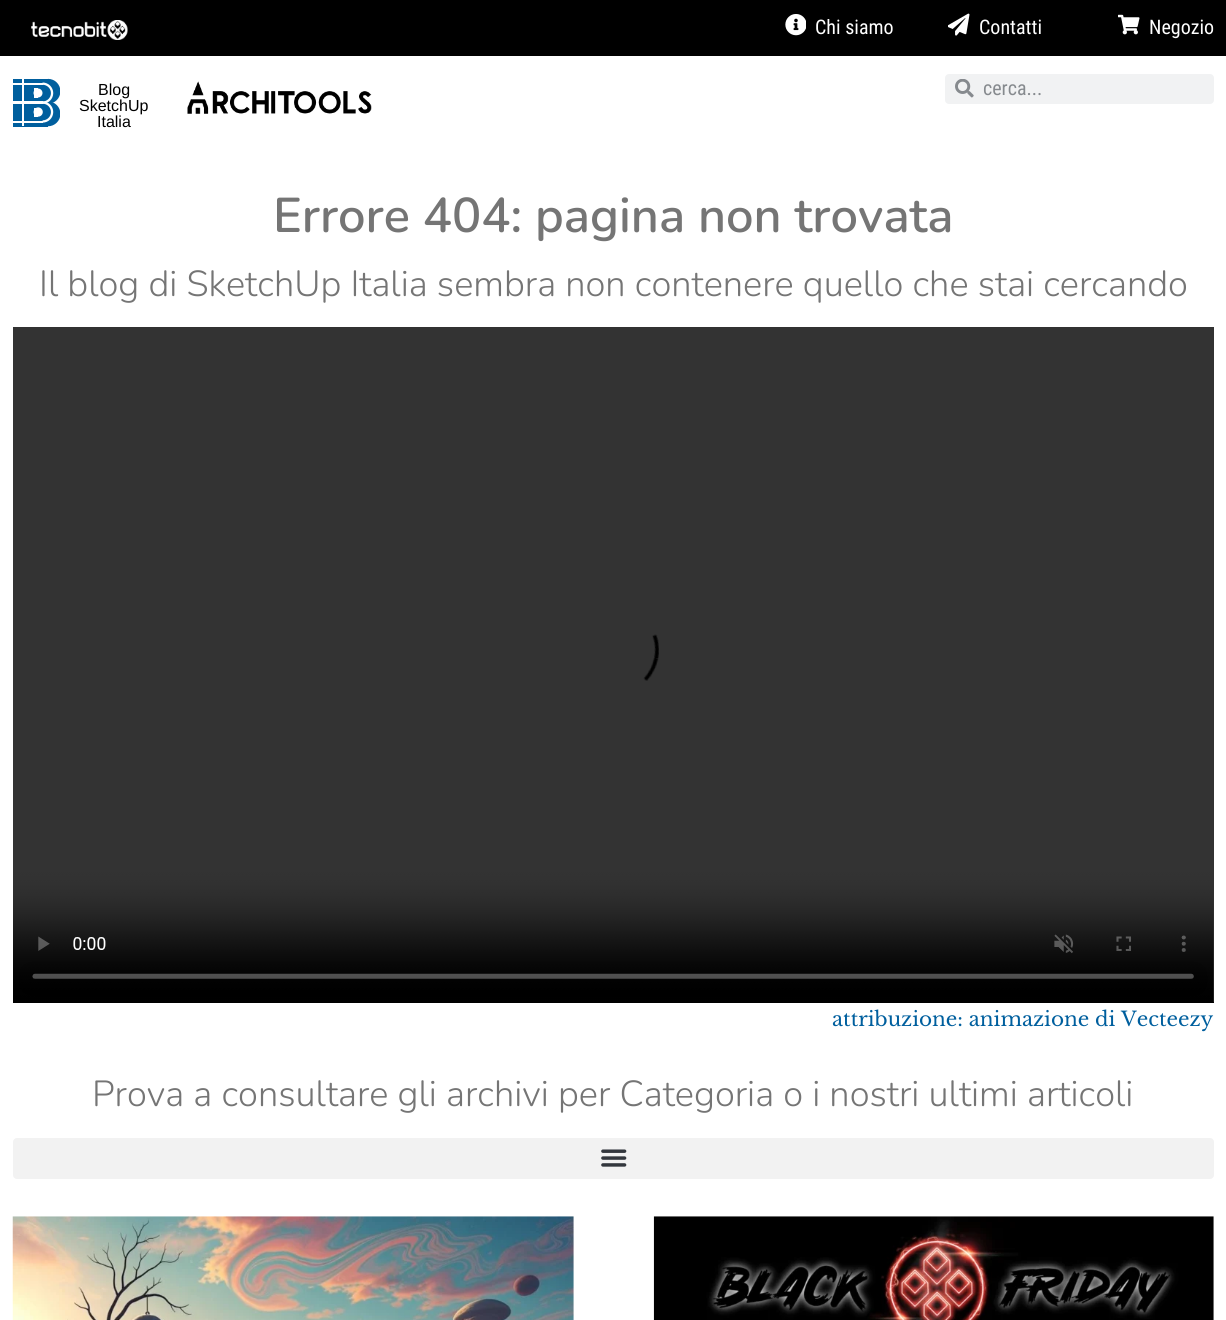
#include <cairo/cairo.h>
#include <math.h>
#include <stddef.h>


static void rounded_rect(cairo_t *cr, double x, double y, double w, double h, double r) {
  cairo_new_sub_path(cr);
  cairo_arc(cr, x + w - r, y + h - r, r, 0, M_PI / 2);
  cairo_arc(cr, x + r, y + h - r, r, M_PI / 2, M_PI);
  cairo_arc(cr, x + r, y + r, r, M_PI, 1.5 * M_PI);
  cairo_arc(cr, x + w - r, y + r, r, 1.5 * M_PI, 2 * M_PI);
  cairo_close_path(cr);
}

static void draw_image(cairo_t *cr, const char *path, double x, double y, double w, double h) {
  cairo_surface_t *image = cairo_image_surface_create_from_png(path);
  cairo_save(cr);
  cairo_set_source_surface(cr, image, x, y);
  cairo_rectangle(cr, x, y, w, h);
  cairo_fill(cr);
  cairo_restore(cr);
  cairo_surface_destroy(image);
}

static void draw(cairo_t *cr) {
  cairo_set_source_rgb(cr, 1, 1, 1);
  cairo_paint(cr);
  cairo_set_source_rgb(cr, 0, 0, 0);
  cairo_rectangle(cr, 0, 0, 1226, 56);
  cairo_fill(cr);
  draw_image(cr, "images/1.png", 31, 20, 97, 20);
  draw_image(cr, "images/2.png", 785, 14, 21, 22);
  draw_image(cr, "images/3.png", 948, 13, 22, 23);
  draw_image(cr, "images/4.png", 1118, 14, 22, 21);
  draw_image(cr, "images/5.png", 13, 78, 47, 49);
  draw_image(cr, "images/6.png", 187, 81, 185, 33);
  cairo_set_source_rgb(cr, 241 / 255.0, 242 / 255.0, 243 / 255.0);
  rounded_rect(cr, 945, 74, 269, 30, 4);
  cairo_fill(cr);
  draw_image(cr, "images/7.png", 955, 79, 19, 19);
  cairo_set_source_rgb(cr, 0, 0, 0);
  cairo_rectangle(cr, 13, 1002, 1201, 1);
  cairo_fill(cr);
  draw_image(cr, "images/8.png", 13, 327, 1201, 675);
  cairo_set_source_rgb(cr, 242 / 255.0, 242 / 255.0, 242 / 255.0);
  rounded_rect(cr, 13, 1138, 1201, 41, 4);
  cairo_fill(cr);
  draw_image(cr, "images/9.png", 601, 1149, 26, 18);
  draw_image(cr, "images/10.png", 12, 1216, 562, 104);
  draw_image(cr, "images/11.png", 653, 1216, 561, 104);
  cairo_select_font_face(cr, "Roboto Condensed", CAIRO_FONT_SLANT_NORMAL, CAIRO_FONT_WEIGHT_NORMAL);
  cairo_set_font_size(cr, 20);
  cairo_set_source_rgb(cr, 1, 1, 1);
  cairo_move_to(cr, 815, 34);
  cairo_show_text(cr, "Chi siamo");
  cairo_move_to(cr, 979, 34);
  cairo_show_text(cr, "Contatti");
  cairo_move_to(cr, 1149, 34);
  cairo_show_text(cr, "Negozio");
  cairo_select_font_face(cr, "Liberation Sans", CAIRO_FONT_SLANT_NORMAL, CAIRO_FONT_WEIGHT_NORMAL);
  cairo_set_font_size(cr, 16);
  cairo_set_source_rgb(cr, 0, 0, 0);
  cairo_move_to(cr, 98, 95);
  cairo_show_text(cr, "Blog");
  cairo_move_to(cr, 79, 111);
  cairo_show_text(cr, "SketchUp");
  cairo_move_to(cr, 97, 127);
  cairo_show_text(cr, "Italia");
  cairo_select_font_face(cr, "Roboto Condensed", CAIRO_FONT_SLANT_NORMAL, CAIRO_FONT_WEIGHT_NORMAL);
  cairo_set_font_size(cr, 20);
  cairo_set_source_rgb(cr, 134 / 255.0, 138 / 255.0, 142 / 255.0);
  cairo_move_to(cr, 983, 95);
  cairo_show_text(cr, "cerca...");
  cairo_select_font_face(cr, "Nunito SemiBold", CAIRO_FONT_SLANT_NORMAL, CAIRO_FONT_WEIGHT_NORMAL);
  cairo_set_font_size(cr, 48.75);
  cairo_set_source_rgb(cr, 117 / 255.0, 117 / 255.0, 117 / 255.0);
  cairo_move_to(cr, 273, 232);
  cairo_show_text(cr, "Errore 404: pagina non trovata");
  cairo_select_font_face(cr, "Nunito Light", CAIRO_FONT_SLANT_NORMAL, CAIRO_FONT_WEIGHT_NORMAL);
  cairo_set_font_size(cr, 36.25);
  cairo_move_to(cr, 39, 296);
  cairo_show_text(cr, "Il blog di SketchUp Italia sembra non contenere quello che stai cercando");
  cairo_select_font_face(cr, "Libre Baskerville", CAIRO_FONT_SLANT_NORMAL, CAIRO_FONT_WEIGHT_NORMAL);
  cairo_set_font_size(cr, 20);
  cairo_set_source_rgb(cr, 0, 95 / 255.0, 158 / 255.0);
  cairo_move_to(cr, 832, 1026);
  cairo_show_text(cr, "attribuzione: animazione di Vecteezy");
  cairo_select_font_face(cr, "Nunito Light", CAIRO_FONT_SLANT_NORMAL, CAIRO_FONT_WEIGHT_NORMAL);
  cairo_set_font_size(cr, 36.25);
  cairo_set_source_rgb(cr, 117 / 255.0, 117 / 255.0, 117 / 255.0);
  cairo_move_to(cr, 92, 1106);
  cairo_show_text(cr, "Prova a consultare gli archivi per Categoria o i nostri ultimi articoli");
}

int main(void) {
  cairo_surface_t *surface = cairo_image_surface_create(CAIRO_FORMAT_RGB24, 1226, 1320);
  cairo_t *cr = cairo_create(surface);
  cairo_font_options_t *options = cairo_font_options_create();
  cairo_font_options_set_hint_metrics(options, CAIRO_HINT_METRICS_OFF);
  cairo_font_options_set_hint_style(options, CAIRO_HINT_STYLE_NONE);
  cairo_set_font_options(cr, options);
  cairo_set_miter_limit(cr, 4);
  draw(cr);
  cairo_surface_write_to_png(surface, "out.png");
  cairo_font_options_destroy(options);
  cairo_destroy(cr);
  cairo_surface_destroy(surface);
  return 0;
}
